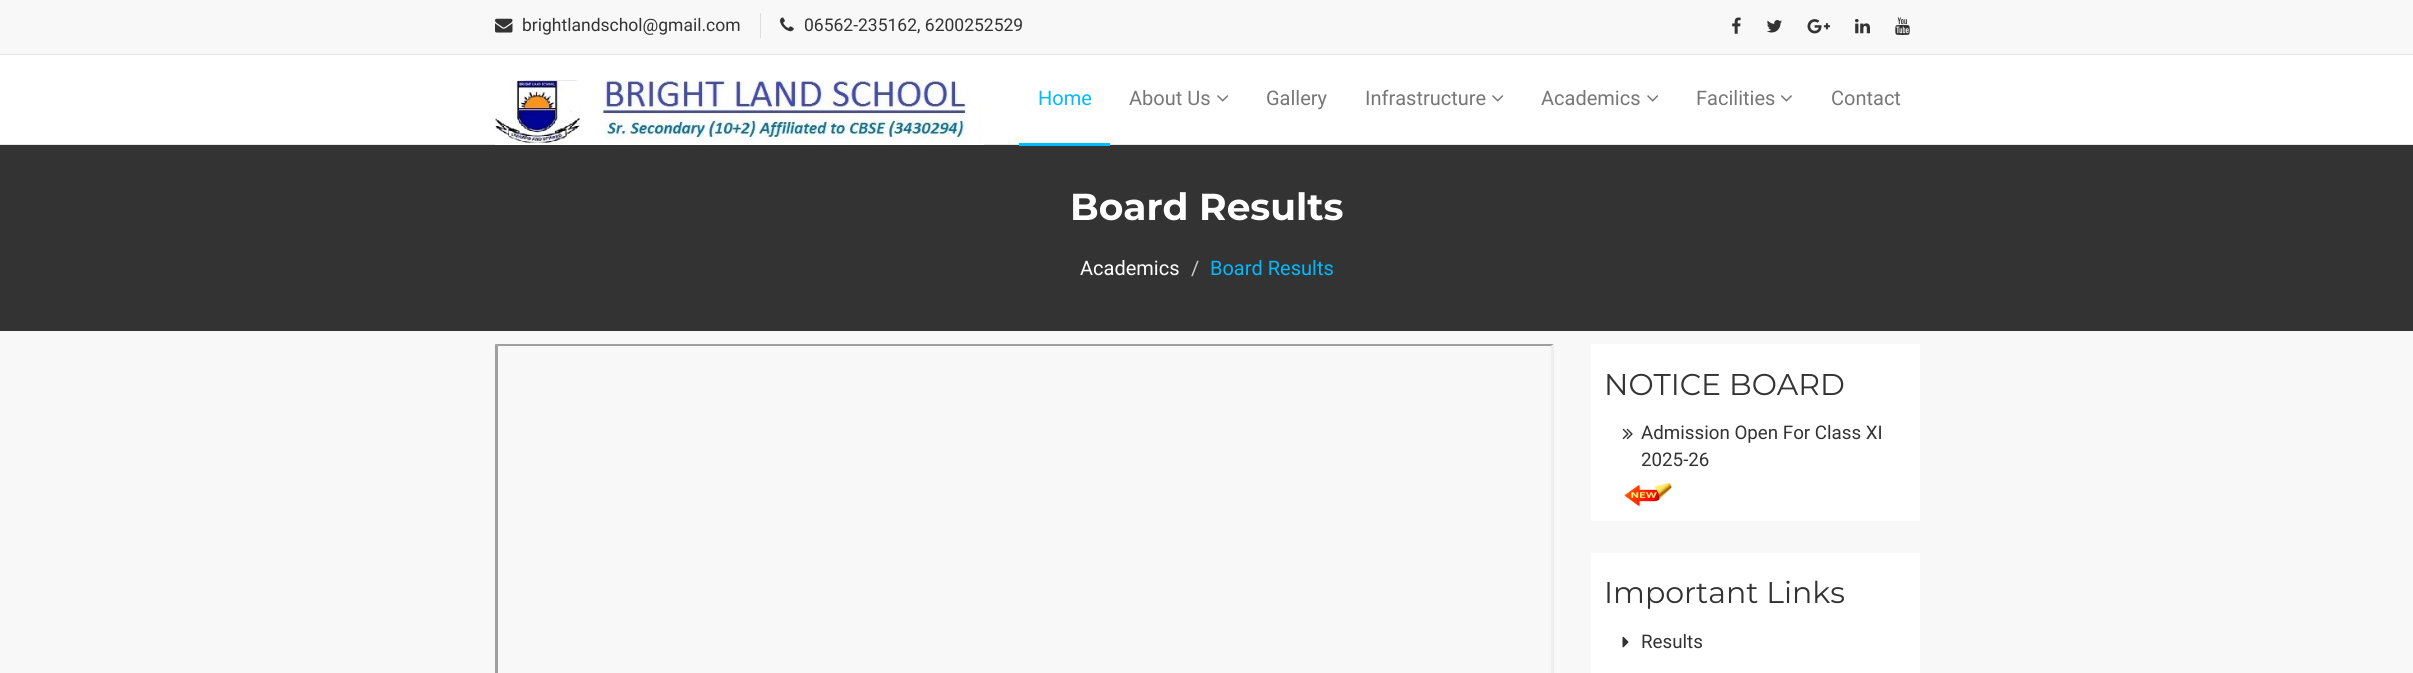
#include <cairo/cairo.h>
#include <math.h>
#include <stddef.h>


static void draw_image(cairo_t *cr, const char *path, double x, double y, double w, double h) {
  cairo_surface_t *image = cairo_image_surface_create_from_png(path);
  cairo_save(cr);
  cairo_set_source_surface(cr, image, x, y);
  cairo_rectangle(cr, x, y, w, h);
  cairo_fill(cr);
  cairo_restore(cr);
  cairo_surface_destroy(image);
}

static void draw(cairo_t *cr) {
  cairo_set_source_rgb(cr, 1, 1, 1);
  cairo_paint(cr);
  cairo_set_source_rgb(cr, 248 / 255.0, 248 / 255.0, 248 / 255.0);
  cairo_rectangle(cr, 0, 0, 2413, 54);
  cairo_fill(cr);
  draw_image(cr, "images/1.png", 495, 18, 18, 15);
  cairo_set_source_rgb(cr, 221 / 255.0, 221 / 255.0, 221 / 255.0);
  cairo_rectangle(cr, 760, 13, 1, 25);
  cairo_fill(cr);
  draw_image(cr, "images/2.png", 780, 17, 14, 15);
  draw_image(cr, "images/3.png", 1732, 17, 9, 17);
  draw_image(cr, "images/4.png", 1766, 20, 16, 13);
  draw_image(cr, "images/5.png", 1807, 19, 23, 15);
  draw_image(cr, "images/6.png", 1855, 19, 15, 15);
  draw_image(cr, "images/7.png", 1895, 17, 15, 18);
  cairo_set_source_rgb(cr, 231 / 255.0, 231 / 255.0, 231 / 255.0);
  cairo_rectangle(cr, 0, 54, 2413, 1);
  cairo_fill(cr);
  cairo_rectangle(cr, 0, 144, 2413, 1);
  cairo_fill(cr);
  draw_image(cr, "images/8.png", 495, 80, 489, 65);
  cairo_set_source_rgb(cr, 51 / 255.0, 51 / 255.0, 51 / 255.0);
  cairo_rectangle(cr, 0, 145, 2413, 186);
  cairo_fill(cr);
  cairo_set_source_rgb(cr, 1 / 255.0, 186 / 255.0, 253 / 255.0);
  cairo_rectangle(cr, 1019, 143, 91, 3);
  cairo_fill(cr);
  draw_image(cr, "images/9.png", 1217, 95, 12, 7);
  draw_image(cr, "images/9.png", 1492, 95, 12, 7);
  draw_image(cr, "images/9.png", 1647, 95, 12, 7);
  draw_image(cr, "images/10.png", 1780, 95, 12, 7);
  cairo_set_source_rgb(cr, 248 / 255.0, 248 / 255.0, 248 / 255.0);
  cairo_rectangle(cr, 0, 331, 2413, 342);
  cairo_fill(cr);
  cairo_set_source_rgb(cr, 159 / 255.0, 159 / 255.0, 159 / 255.0);
  cairo_new_path(cr);
  cairo_move_to(cr, 495, 344);
  cairo_line_to(cr, 1554, 344);
  cairo_line_to(cr, 1551, 346);
  cairo_line_to(cr, 498, 346);
  cairo_close_path(cr);
  cairo_fill(cr);
  cairo_new_path(cr);
  cairo_move_to(cr, 495, 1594);
  cairo_line_to(cr, 495, 344);
  cairo_line_to(cr, 498, 346);
  cairo_line_to(cr, 498, 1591);
  cairo_close_path(cr);
  cairo_fill(cr);
  cairo_set_source_rgb(cr, 238 / 255.0, 238 / 255.0, 238 / 255.0);
  cairo_new_path(cr);
  cairo_move_to(cr, 1554, 344);
  cairo_line_to(cr, 1554, 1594);
  cairo_line_to(cr, 1551, 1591);
  cairo_line_to(cr, 1551, 346);
  cairo_close_path(cr);
  cairo_fill(cr);
  cairo_set_source_rgb(cr, 1, 1, 1);
  cairo_rectangle(cr, 1591, 344, 329, 177);
  cairo_fill(cr);
  draw_image(cr, "images/11.png", 1622, 428, 11, 12);
  draw_image(cr, "images/12.png", 1623, 482, 49, 25);
  cairo_rectangle(cr, 1591, 553, 329, 120);
  cairo_fill(cr);
  draw_image(cr, "images/13.png", 1622, 636, 7, 12);
  cairo_select_font_face(cr, "Roboto", CAIRO_FONT_SLANT_NORMAL, CAIRO_FONT_WEIGHT_NORMAL);
  cairo_set_font_size(cr, 17.5);
  cairo_set_source_rgb(cr, 51 / 255.0, 51 / 255.0, 51 / 255.0);
  cairo_move_to(cr, 522, 31);
  cairo_show_text(cr, "brightlandschol@gmail.com");
  cairo_move_to(cr, 804, 31);
  cairo_show_text(cr, "06562-235162, 6200252529");
  cairo_set_font_size(cr, 20);
  cairo_set_source_rgb(cr, 1 / 255.0, 186 / 255.0, 253 / 255.0);
  cairo_move_to(cr, 1038, 105);
  cairo_show_text(cr, "Home");
  cairo_set_source_rgb(cr, 119 / 255.0, 119 / 255.0, 119 / 255.0);
  cairo_move_to(cr, 1129, 105);
  cairo_show_text(cr, "About Us");
  cairo_move_to(cr, 1266, 105);
  cairo_show_text(cr, "Gallery");
  cairo_move_to(cr, 1365, 105);
  cairo_show_text(cr, "Infrastructure");
  cairo_move_to(cr, 1541, 105);
  cairo_show_text(cr, "Academics");
  cairo_move_to(cr, 1696, 105);
  cairo_show_text(cr, "Facilities");
  cairo_move_to(cr, 1831, 105);
  cairo_show_text(cr, "Contact");
  cairo_select_font_face(cr, "Montserrat", CAIRO_FONT_SLANT_NORMAL, CAIRO_FONT_WEIGHT_BOLD);
  cairo_set_font_size(cr, 37.5);
  cairo_set_source_rgb(cr, 1, 1, 1);
  cairo_move_to(cr, 1070, 220);
  cairo_show_text(cr, "Board Results");
  cairo_select_font_face(cr, "Roboto", CAIRO_FONT_SLANT_NORMAL, CAIRO_FONT_WEIGHT_NORMAL);
  cairo_set_font_size(cr, 20);
  cairo_move_to(cr, 1080, 275);
  cairo_show_text(cr, "Academics");
  cairo_set_source_rgb(cr, 204 / 255.0, 204 / 255.0, 204 / 255.0);
  cairo_move_to(cr, 1191, 275);
  cairo_show_text(cr, "/");
  cairo_set_source_rgb(cr, 1 / 255.0, 186 / 255.0, 253 / 255.0);
  cairo_move_to(cr, 1210, 275);
  cairo_show_text(cr, "Board Results");
  cairo_select_font_face(cr, "Montserrat", CAIRO_FONT_SLANT_NORMAL, CAIRO_FONT_WEIGHT_NORMAL);
  cairo_set_font_size(cr, 30);
  cairo_set_source_rgb(cr, 51 / 255.0, 51 / 255.0, 51 / 255.0);
  cairo_move_to(cr, 1604, 395);
  cairo_show_text(cr, "NOTICE BOARD");
  cairo_select_font_face(cr, "Roboto", CAIRO_FONT_SLANT_NORMAL, CAIRO_FONT_WEIGHT_NORMAL);
  cairo_set_font_size(cr, 18.75);
  cairo_move_to(cr, 1641, 439);
  cairo_show_text(cr, "Admission Open For Class XI");
  cairo_move_to(cr, 1641, 466);
  cairo_show_text(cr, "2025-26");
  cairo_select_font_face(cr, "Montserrat", CAIRO_FONT_SLANT_NORMAL, CAIRO_FONT_WEIGHT_NORMAL);
  cairo_set_font_size(cr, 30);
  cairo_move_to(cr, 1604, 603);
  cairo_show_text(cr, "Important Links");
  cairo_select_font_face(cr, "Roboto", CAIRO_FONT_SLANT_NORMAL, CAIRO_FONT_WEIGHT_NORMAL);
  cairo_set_font_size(cr, 18.75);
  cairo_move_to(cr, 1641, 648);
  cairo_show_text(cr, "Results");
}

int main(void) {
  cairo_surface_t *surface = cairo_image_surface_create(CAIRO_FORMAT_RGB24, 2413, 673);
  cairo_t *cr = cairo_create(surface);
  cairo_font_options_t *options = cairo_font_options_create();
  cairo_font_options_set_hint_metrics(options, CAIRO_HINT_METRICS_OFF);
  cairo_font_options_set_hint_style(options, CAIRO_HINT_STYLE_NONE);
  cairo_set_font_options(cr, options);
  cairo_set_miter_limit(cr, 4);
  draw(cr);
  cairo_surface_write_to_png(surface, "out.png");
  cairo_font_options_destroy(options);
  cairo_destroy(cr);
  cairo_surface_destroy(surface);
  return 0;
}
